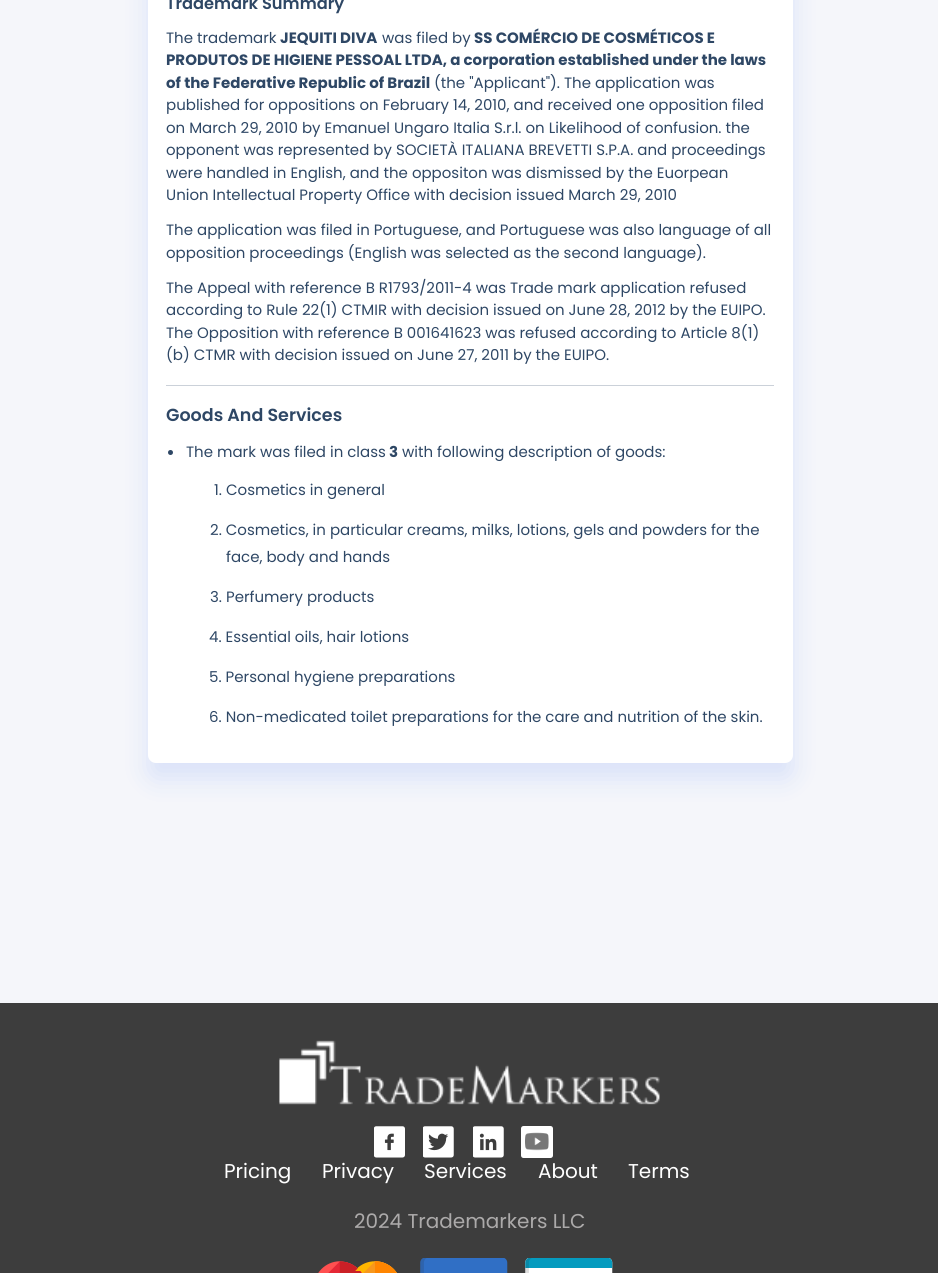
#include <cairo/cairo.h>
#include <math.h>
#include <stddef.h>


static void rounded_rect(cairo_t *cr, double x, double y, double w, double h, double r) {
  cairo_new_sub_path(cr);
  cairo_arc(cr, x + w - r, y + h - r, r, 0, M_PI / 2);
  cairo_arc(cr, x + r, y + h - r, r, M_PI / 2, M_PI);
  cairo_arc(cr, x + r, y + r, r, M_PI, 1.5 * M_PI);
  cairo_arc(cr, x + w - r, y + r, r, 1.5 * M_PI, 2 * M_PI);
  cairo_close_path(cr);
}

static void draw_shadow(cairo_t *cr, double x, double y, double w, double h, double r, double blur, double alpha) {
  cairo_push_group_with_content(cr, CAIRO_CONTENT_ALPHA);
  cairo_set_operator(cr, CAIRO_OPERATOR_SOURCE);
  for (int i = 15; i >= -15 && fmin(w, h) + blur * i / 3 > 0; i -= 2) {
    double e = blur * i / 6;
    cairo_set_source_rgba(cr, 0, 0, 0, alpha * erfc((i - 1) / 8.5) / 2);
    rounded_rect(cr, x - e, y - e, w + 2 * e, h + 2 * e, fmax(0, fmin(r + e + blur * .6, fmin(w, h) / 2 + e)));
    cairo_fill(cr);
  }
  cairo_pattern_t *soft = cairo_pop_group(cr);
  cairo_mask(cr, soft);
  cairo_pattern_destroy(soft);
}

static void draw_image(cairo_t *cr, const char *path, double x, double y, double w, double h) {
  cairo_surface_t *image = cairo_image_surface_create_from_png(path);
  cairo_save(cr);
  cairo_set_source_surface(cr, image, x, y);
  cairo_rectangle(cr, x, y, w, h);
  cairo_fill(cr);
  cairo_restore(cr);
  cairo_surface_destroy(image);
}

static void draw(cairo_t *cr) {
  cairo_set_source_rgb(cr, 245 / 255.0, 246 / 255.0, 250 / 255.0);
  cairo_paint(cr);
  cairo_set_source_rgb(cr, 154 / 255.0, 181 / 255.0, 246 / 255.0);
  draw_shadow(cr, 148, -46, 645, 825, 8, 12.5, 0.3);
  cairo_set_source_rgb(cr, 1, 1, 1);
  rounded_rect(cr, 148, -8, 645, 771, 8);
  cairo_fill(cr);
  cairo_set_source_rgb(cr, 203 / 255.0, 209 / 255.0, 217 / 255.0);
  cairo_rectangle(cr, 166, 385, 608, 1);
  cairo_fill(cr);
  cairo_set_source_rgb(cr, 46 / 255.0, 71 / 255.0, 101 / 255.0);
  cairo_arc(cr, 170.5, 452.5, 2.5, 0, 2 * M_PI);
  cairo_fill(cr);
  cairo_set_source_rgb(cr, 61 / 255.0, 61 / 255.0, 61 / 255.0);
  cairo_rectangle(cr, 0, 1003, 938, 270);
  cairo_fill(cr);
  draw_image(cr, "images/1.png", 279, 1040, 381, 65);
  draw_image(cr, "images/2.png", 374, 1126, 31, 32);
  draw_image(cr, "images/3.png", 423, 1126, 31, 32);
  draw_image(cr, "images/4.png", 473, 1126, 31, 32);
  cairo_set_source_rgb(cr, 1, 1, 1);
  rounded_rect(cr, 521, 1126, 32, 32, 2.5);
  cairo_fill(cr);
  draw_image(cr, "images/5.png", 525, 1132, 24, 19);
  draw_image(cr, "images/6.png", 318, 1261, 79, 12);
  draw_image(cr, "images/7.png", 420, 1258, 88, 15);
  draw_image(cr, "images/8.png", 525, 1258, 88, 15);
  cairo_select_font_face(cr, "Poppins SemiBold", CAIRO_FONT_SLANT_NORMAL, CAIRO_FONT_WEIGHT_NORMAL);
  cairo_set_font_size(cr, 16.25);
  cairo_set_source_rgb(cr, 46 / 255.0, 71 / 255.0, 101 / 255.0);
  cairo_move_to(cr, 166, 9);
  cairo_show_text(cr, "Trademark Summary");
  cairo_select_font_face(cr, "Poppins", CAIRO_FONT_SLANT_NORMAL, CAIRO_FONT_WEIGHT_NORMAL);
  cairo_set_font_size(cr, 15);
  cairo_move_to(cr, 166, 43);
  cairo_show_text(cr, "The trademark");
  cairo_select_font_face(cr, "Poppins", CAIRO_FONT_SLANT_NORMAL, CAIRO_FONT_WEIGHT_BOLD);
  cairo_move_to(cr, 280, 43);
  cairo_show_text(cr, "JEQUITI DIVA");
  cairo_select_font_face(cr, "Poppins", CAIRO_FONT_SLANT_NORMAL, CAIRO_FONT_WEIGHT_NORMAL);
  cairo_move_to(cr, 382, 43);
  cairo_show_text(cr, "was filed by");
  cairo_select_font_face(cr, "Poppins", CAIRO_FONT_SLANT_NORMAL, CAIRO_FONT_WEIGHT_BOLD);
  cairo_move_to(cr, 474, 43);
  cairo_show_text(cr, "SS COMÉRCIO DE COSMÉTICOS E");
  cairo_move_to(cr, 166, 65);
  cairo_show_text(cr, "PRODUTOS DE HIGIENE PESSOAL LTDA, a corporation established under the laws");
  cairo_move_to(cr, 166, 88);
  cairo_show_text(cr, "of the Federative Republic of Brazil");
  cairo_select_font_face(cr, "Poppins", CAIRO_FONT_SLANT_NORMAL, CAIRO_FONT_WEIGHT_NORMAL);
  cairo_move_to(cr, 434, 88);
  cairo_show_text(cr, "(the \"Applicant\"). The application was");
  cairo_move_to(cr, 166, 110);
  cairo_show_text(cr, "published for oppositions on February 14, 2010, and received one opposition filed");
  cairo_move_to(cr, 166, 133);
  cairo_show_text(cr, "on March 29, 2010 by Emanuel Ungaro Italia S.r.l. on Likelihood of confusion. the");
  cairo_move_to(cr, 166, 155);
  cairo_show_text(cr, "opponent was represented by SOCIETÀ ITALIANA BREVETTI S.P.A. and proceedings");
  cairo_move_to(cr, 166, 178);
  cairo_show_text(cr, "were handled in English, and the oppositon was dismissed by the Euorpean");
  cairo_move_to(cr, 166, 200);
  cairo_show_text(cr, "Union Intellectual Property Office with decision issued March 29, 2010");
  cairo_move_to(cr, 166, 235);
  cairo_show_text(cr, "The application was filed in Portuguese, and Portuguese was also language of all");
  cairo_move_to(cr, 166, 258);
  cairo_show_text(cr, "opposition proceedings (English was selected as the second language).");
  cairo_move_to(cr, 166, 293);
  cairo_show_text(cr, "The Appeal with reference B R1793/2011-4 was Trade mark application refused");
  cairo_move_to(cr, 166, 315);
  cairo_show_text(cr, "according to Rule 22(1) CTMIR with decision issued on June 28, 2012 by the EUIPO.");
  cairo_move_to(cr, 166, 338);
  cairo_show_text(cr, "The Opposition with reference B 001641623 was refused according to Article 8(1)");
  cairo_move_to(cr, 166, 360);
  cairo_show_text(cr, "(b) CTMR with decision issued on June 27, 2011 by the EUIPO.");
  cairo_select_font_face(cr, "Poppins SemiBold", CAIRO_FONT_SLANT_NORMAL, CAIRO_FONT_WEIGHT_NORMAL);
  cairo_set_font_size(cr, 17.5);
  cairo_move_to(cr, 166, 421);
  cairo_show_text(cr, "Goods And Services");
  cairo_select_font_face(cr, "Poppins", CAIRO_FONT_SLANT_NORMAL, CAIRO_FONT_WEIGHT_NORMAL);
  cairo_set_font_size(cr, 15);
  cairo_move_to(cr, 186, 457);
  cairo_show_text(cr, "The mark was filed in class");
  cairo_select_font_face(cr, "Poppins", CAIRO_FONT_SLANT_NORMAL, CAIRO_FONT_WEIGHT_BOLD);
  cairo_move_to(cr, 389, 457);
  cairo_show_text(cr, "3");
  cairo_select_font_face(cr, "Poppins", CAIRO_FONT_SLANT_NORMAL, CAIRO_FONT_WEIGHT_NORMAL);
  cairo_move_to(cr, 402, 457);
  cairo_show_text(cr, "with following description of goods:");
  cairo_move_to(cr, 214, 495);
  cairo_show_text(cr, "1. Cosmetics in general");
  cairo_move_to(cr, 210, 535);
  cairo_show_text(cr, "2. Cosmetics, in particular creams, milks, lotions, gels and powders for the");
  cairo_move_to(cr, 226, 562);
  cairo_show_text(cr, "face, body and hands");
  cairo_move_to(cr, 210, 602);
  cairo_show_text(cr, "3. Perfumery products");
  cairo_move_to(cr, 209, 642);
  cairo_show_text(cr, "4. Essential oils, hair lotions");
  cairo_move_to(cr, 209, 682);
  cairo_show_text(cr, "5. Personal hygiene preparations");
  cairo_move_to(cr, 209, 722);
  cairo_show_text(cr, "6. Non-medicated toilet preparations for the care and nutrition of the skin.");
  cairo_set_font_size(cr, 20);
  cairo_set_source_rgb(cr, 1, 1, 1);
  cairo_move_to(cr, 224, 1178);
  cairo_show_text(cr, "Pricing");
  cairo_move_to(cr, 322, 1178);
  cairo_show_text(cr, "Privacy");
  cairo_move_to(cr, 424, 1178);
  cairo_show_text(cr, "Services");
  cairo_move_to(cr, 538, 1178);
  cairo_show_text(cr, "About");
  cairo_move_to(cr, 628, 1178);
  cairo_show_text(cr, "Terms");
  cairo_set_source_rgb(cr, 172 / 255.0, 170 / 255.0, 170 / 255.0);
  cairo_move_to(cr, 354, 1228);
  cairo_show_text(cr, "2024 Trademarkers LLC");
}

int main(void) {
  cairo_surface_t *surface = cairo_image_surface_create(CAIRO_FORMAT_RGB24, 938, 1273);
  cairo_t *cr = cairo_create(surface);
  cairo_font_options_t *options = cairo_font_options_create();
  cairo_font_options_set_hint_metrics(options, CAIRO_HINT_METRICS_OFF);
  cairo_font_options_set_hint_style(options, CAIRO_HINT_STYLE_NONE);
  cairo_set_font_options(cr, options);
  cairo_set_miter_limit(cr, 4);
  draw(cr);
  cairo_surface_write_to_png(surface, "out.png");
  cairo_font_options_destroy(options);
  cairo_destroy(cr);
  cairo_surface_destroy(surface);
  return 0;
}
